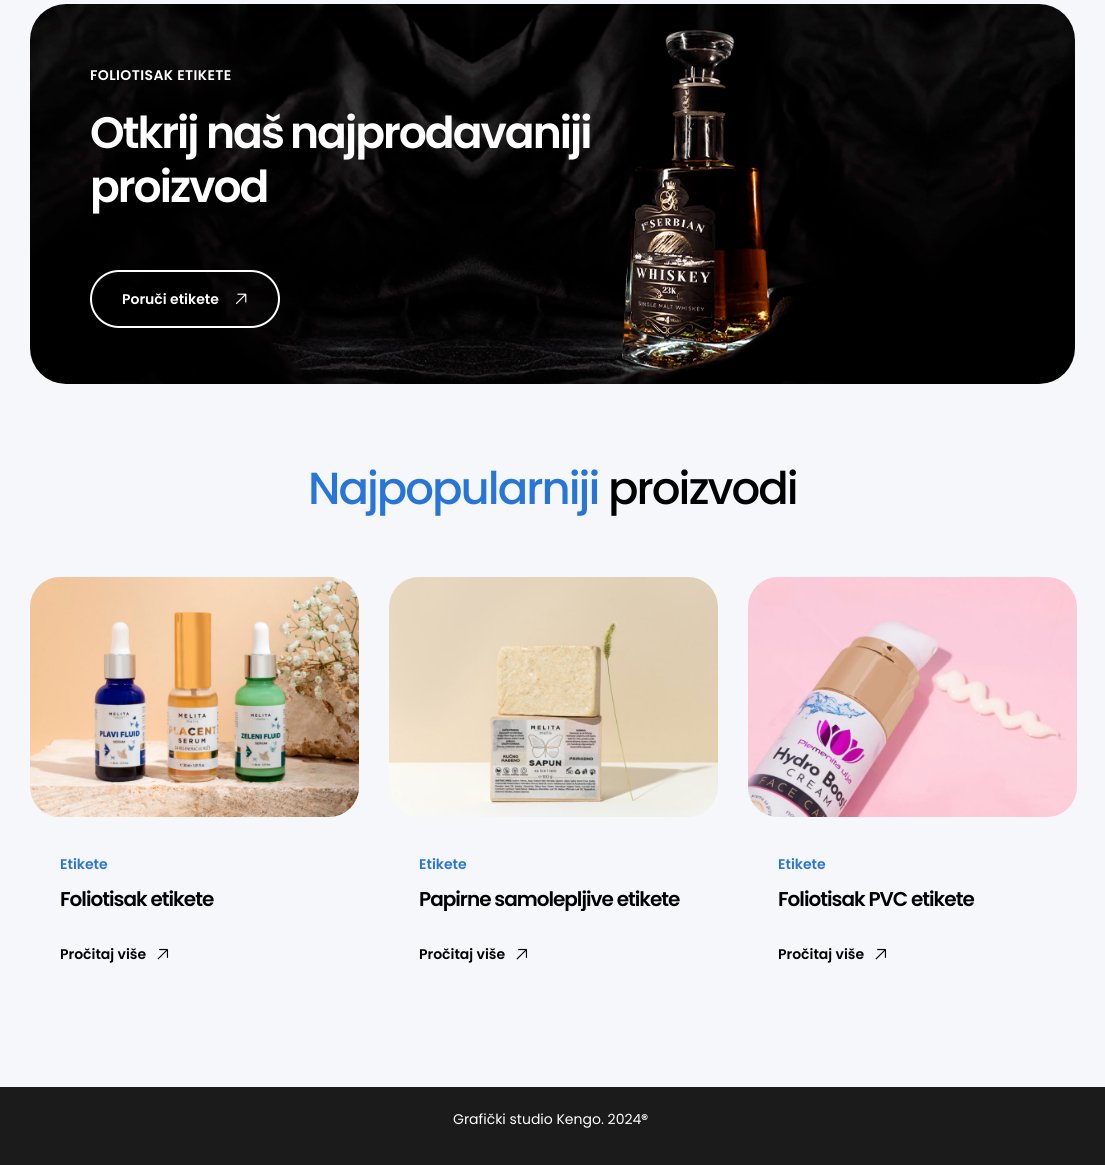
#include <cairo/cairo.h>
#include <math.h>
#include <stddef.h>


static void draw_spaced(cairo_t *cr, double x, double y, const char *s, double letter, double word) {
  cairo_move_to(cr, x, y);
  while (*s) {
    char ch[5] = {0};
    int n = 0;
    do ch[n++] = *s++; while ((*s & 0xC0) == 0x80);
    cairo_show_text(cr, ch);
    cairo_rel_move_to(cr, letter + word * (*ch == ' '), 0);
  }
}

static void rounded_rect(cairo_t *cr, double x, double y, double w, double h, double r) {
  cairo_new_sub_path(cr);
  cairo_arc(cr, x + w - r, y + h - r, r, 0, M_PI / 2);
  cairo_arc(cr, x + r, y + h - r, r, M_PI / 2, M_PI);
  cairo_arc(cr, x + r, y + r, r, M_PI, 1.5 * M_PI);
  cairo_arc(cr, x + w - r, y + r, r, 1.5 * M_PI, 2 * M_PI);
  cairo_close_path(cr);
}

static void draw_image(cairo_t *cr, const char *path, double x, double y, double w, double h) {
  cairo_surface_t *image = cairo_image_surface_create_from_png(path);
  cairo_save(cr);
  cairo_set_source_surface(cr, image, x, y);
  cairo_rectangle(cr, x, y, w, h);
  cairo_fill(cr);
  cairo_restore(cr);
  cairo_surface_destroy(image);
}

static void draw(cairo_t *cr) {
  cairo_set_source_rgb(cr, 245 / 255.0, 247 / 255.0, 250 / 255.0);
  cairo_paint(cr);
  draw_image(cr, "images/1.png", 30, 4, 1045, 380);
  rounded_rect(cr, 91, 271, 188, 56, 28);
  cairo_set_source_rgb(cr, 1, 1, 1);
  cairo_stroke(cr);
  draw_image(cr, "images/2.png", 235, 293, 12, 12);
  draw_image(cr, "images/3.png", 30, 577, 329, 240);
  draw_image(cr, "images/4.png", 157, 948, 12, 12);
  draw_image(cr, "images/5.png", 389, 577, 329, 240);
  draw_image(cr, "images/4.png", 516, 948, 12, 12);
  draw_image(cr, "images/6.png", 748, 577, 329, 240);
  draw_image(cr, "images/4.png", 875, 948, 12, 12);
  cairo_set_source_rgb(cr, 27 / 255.0, 27 / 255.0, 27 / 255.0);
  cairo_rectangle(cr, 0, 1087, 1105, 78);
  cairo_fill(cr);
  cairo_select_font_face(cr, "Poppins SemiBold", CAIRO_FONT_SLANT_NORMAL, CAIRO_FONT_WEIGHT_NORMAL);
  cairo_set_font_size(cr, 14);
  cairo_set_source_rgb(cr, 1, 1, 1);
  draw_spaced(cr, 90, 80, "FOLIOTISAK ETIKETE", 0.4, 0);
  cairo_set_font_size(cr, 44);
  draw_spaced(cr, 90, 148, "Otkrij", -2, 0);
  draw_spaced(cr, 206, 148, "naš", -2, 0);
  draw_spaced(cr, 290, 148, "najprodavaniji", -2, 0);
  draw_spaced(cr, 90, 202, "proizvod", -2, 0);
  cairo_set_font_size(cr, 14);
  cairo_move_to(cr, 122, 304);
  cairo_show_text(cr, "Poruči etikete");
  cairo_select_font_face(cr, "Poppins Medium", CAIRO_FONT_SLANT_NORMAL, CAIRO_FONT_WEIGHT_NORMAL);
  cairo_set_font_size(cr, 45);
  cairo_set_source_rgb(cr, 40 / 255.0, 117 / 255.0, 217 / 255.0);
  draw_spaced(cr, 308, 504, "Najpopularniji", -2, 0);
  cairo_set_source_rgb(cr, 0, 0, 0);
  draw_spaced(cr, 608, 504, "proizvodi", -2, 0);
  cairo_select_font_face(cr, "Poppins SemiBold", CAIRO_FONT_SLANT_NORMAL, CAIRO_FONT_WEIGHT_NORMAL);
  cairo_set_font_size(cr, 14);
  cairo_set_source_rgb(cr, 40 / 255.0, 117 / 255.0, 217 / 255.0);
  cairo_move_to(cr, 60, 869);
  cairo_show_text(cr, "Etikete");
  cairo_set_font_size(cr, 20);
  cairo_set_source_rgb(cr, 0, 0, 0);
  draw_spaced(cr, 60, 906, "Foliotisak etikete", -1, 0);
  cairo_set_font_size(cr, 14);
  cairo_move_to(cr, 60, 959);
  cairo_show_text(cr, "Pročitaj više");
  cairo_set_source_rgb(cr, 40 / 255.0, 117 / 255.0, 217 / 255.0);
  cairo_move_to(cr, 419, 869);
  cairo_show_text(cr, "Etikete");
  cairo_save(cr);
  cairo_rectangle(cr, 419, 887, 269, 24);
  cairo_clip(cr);
  cairo_set_font_size(cr, 20);
  cairo_set_source_rgb(cr, 0, 0, 0);
  draw_spaced(cr, 419, 906, "Papirne samolepljive etikete", -1, 0);
  cairo_restore(cr);
  cairo_set_source_rgb(cr, 0, 0, 0);
  cairo_move_to(cr, 419, 959);
  cairo_show_text(cr, "Pročitaj više");
  cairo_set_source_rgb(cr, 40 / 255.0, 117 / 255.0, 217 / 255.0);
  cairo_move_to(cr, 778, 869);
  cairo_show_text(cr, "Etikete");
  cairo_set_font_size(cr, 20);
  cairo_set_source_rgb(cr, 0, 0, 0);
  draw_spaced(cr, 778, 906, "Foliotisak PVC etikete", -1, 0);
  cairo_set_font_size(cr, 14);
  cairo_move_to(cr, 778, 959);
  cairo_show_text(cr, "Pročitaj više");
  cairo_select_font_face(cr, "Poppins", CAIRO_FONT_SLANT_NORMAL, CAIRO_FONT_WEIGHT_NORMAL);
  cairo_set_source_rgb(cr, 1, 1, 1);
  cairo_move_to(cr, 453, 1124);
  cairo_show_text(cr, "Grafički studio Kengo. 2024");
  cairo_select_font_face(cr, "Poppins SemiBold", CAIRO_FONT_SLANT_NORMAL, CAIRO_FONT_WEIGHT_NORMAL);
  cairo_move_to(cr, 641, 1124);
  cairo_show_text(cr, "®");
}

int main(void) {
  cairo_surface_t *surface = cairo_image_surface_create(CAIRO_FORMAT_RGB24, 1105, 1165);
  cairo_t *cr = cairo_create(surface);
  cairo_font_options_t *options = cairo_font_options_create();
  cairo_font_options_set_hint_metrics(options, CAIRO_HINT_METRICS_OFF);
  cairo_font_options_set_hint_style(options, CAIRO_HINT_STYLE_NONE);
  cairo_set_font_options(cr, options);
  cairo_set_miter_limit(cr, 4);
  draw(cr);
  cairo_surface_write_to_png(surface, "out.png");
  cairo_font_options_destroy(options);
  cairo_destroy(cr);
  cairo_surface_destroy(surface);
  return 0;
}
